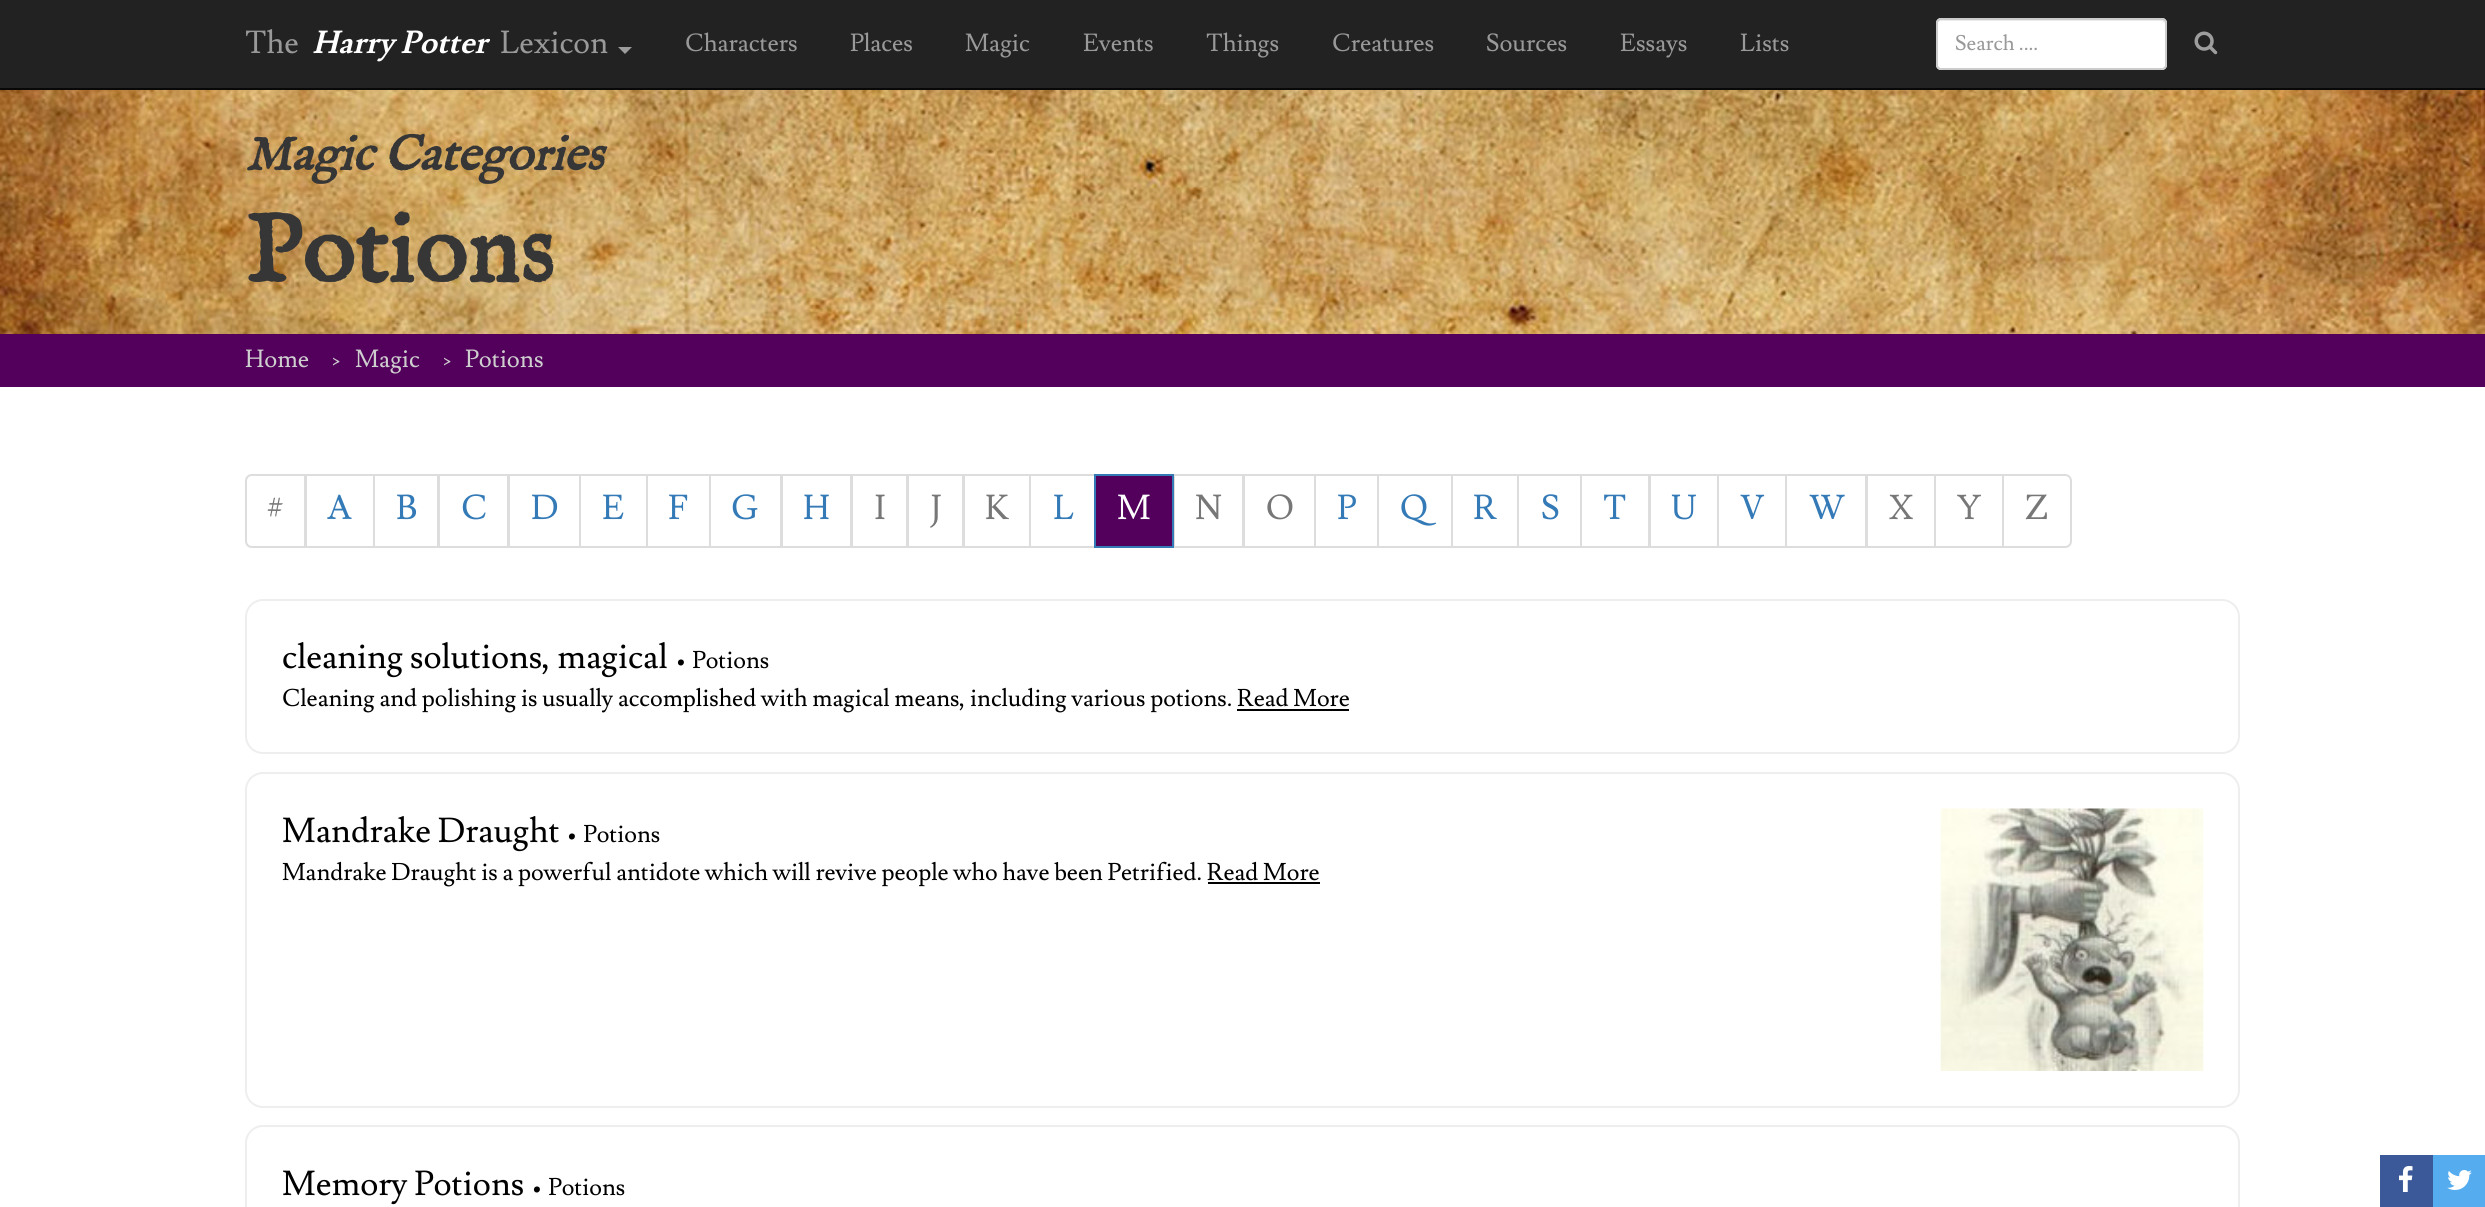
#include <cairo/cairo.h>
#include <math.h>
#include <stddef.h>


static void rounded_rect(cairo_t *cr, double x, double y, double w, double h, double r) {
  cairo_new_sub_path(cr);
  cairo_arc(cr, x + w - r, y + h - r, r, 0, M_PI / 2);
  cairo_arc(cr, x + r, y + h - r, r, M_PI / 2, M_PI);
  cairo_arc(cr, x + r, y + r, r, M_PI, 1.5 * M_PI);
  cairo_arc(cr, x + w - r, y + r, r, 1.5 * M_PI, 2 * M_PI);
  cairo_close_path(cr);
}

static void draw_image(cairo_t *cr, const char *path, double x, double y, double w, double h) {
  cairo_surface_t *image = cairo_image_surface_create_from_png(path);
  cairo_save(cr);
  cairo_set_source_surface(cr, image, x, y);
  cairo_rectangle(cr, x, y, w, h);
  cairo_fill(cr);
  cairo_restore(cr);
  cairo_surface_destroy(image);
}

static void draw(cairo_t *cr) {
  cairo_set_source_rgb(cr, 1, 1, 1);
  cairo_paint(cr);
  cairo_set_source_rgb(cr, 34 / 255.0, 34 / 255.0, 34 / 255.0);
  cairo_rectangle(cr, 0, 0, 2485, 88);
  cairo_fill(cr);
  cairo_set_source_rgb(cr, 8 / 255.0, 8 / 255.0, 8 / 255.0);
  cairo_rectangle(cr, 0, 88, 2485, 2);
  cairo_fill(cr);
  cairo_set_source_rgb(cr, 157 / 255.0, 157 / 255.0, 157 / 255.0);
  cairo_new_path(cr);
  cairo_move_to(cr, 618, 47);
  cairo_line_to(cr, 632, 47);
  cairo_line_to(cr, 625, 54);
  cairo_close_path(cr);
  cairo_fill(cr);
  cairo_set_source_rgb(cr, 1, 1, 1);
  rounded_rect(cr, 1936, 18, 231, 52, 5);
  cairo_fill(cr);
  cairo_set_source_rgb(cr, 236 / 255.0, 236 / 255.0, 236 / 255.0);
  cairo_new_path(cr);
  cairo_move_to(cr, 1941, 21);
  cairo_line_to(cr, 2161, 21);
  cairo_curve_to(cr, 2163, 21, 2165, 23, 2165, 24);
  cairo_curve_to(cr, 2165, 21, 2164, 19, 2161, 19);
  cairo_line_to(cr, 1941, 19);
  cairo_curve_to(cr, 1938, 19, 1937, 21, 1937, 24);
  cairo_curve_to(cr, 1937, 23, 1939, 21, 1941, 21);
  cairo_close_path(cr);
  cairo_fill(cr);
  rounded_rect(cr, 1937, 19, 229, 50, 4);
  cairo_set_source_rgb(cr, 204 / 255.0, 204 / 255.0, 204 / 255.0);
  cairo_stroke(cr);
  draw_image(cr, "images/1.png", 2194, 31, 24, 24);
  draw_image(cr, "images/2.png", 0, 90, 2485, 244);
  cairo_set_source_rgb(cr, 82 / 255.0, 0, 92 / 255.0);
  cairo_rectangle(cr, 0, 334, 2485, 53);
  cairo_fill(cr);
  cairo_new_path(cr);
  cairo_move_to(cr, 252, 475);
  cairo_line_to(cr, 305, 475);
  cairo_line_to(cr, 305, 547);
  cairo_line_to(cr, 252, 547);
  cairo_curve_to(cr, 248.5, 547, 246, 544.5, 246, 541);
  cairo_line_to(cr, 246, 481);
  cairo_curve_to(cr, 246, 477.5, 248.5, 475, 252, 475);
  cairo_close_path(cr);
  cairo_set_source_rgb(cr, 221 / 255.0, 221 / 255.0, 221 / 255.0);
  cairo_stroke(cr);
  cairo_rectangle(cr, 306, 475, 68, 72);
  cairo_stroke(cr);
  cairo_rectangle(cr, 374, 475, 64, 72);
  cairo_stroke(cr);
  cairo_rectangle(cr, 439, 475, 69, 72);
  cairo_stroke(cr);
  cairo_rectangle(cr, 509, 475, 71, 72);
  cairo_stroke(cr);
  cairo_rectangle(cr, 580, 475, 67, 72);
  cairo_stroke(cr);
  cairo_rectangle(cr, 647, 475, 63, 72);
  cairo_stroke(cr);
  cairo_rectangle(cr, 710, 475, 71, 72);
  cairo_stroke(cr);
  cairo_rectangle(cr, 782, 475, 69, 72);
  cairo_stroke(cr);
  cairo_rectangle(cr, 852, 475, 55, 72);
  cairo_stroke(cr);
  cairo_rectangle(cr, 908, 475, 55, 72);
  cairo_stroke(cr);
  cairo_rectangle(cr, 964, 475, 66, 72);
  cairo_stroke(cr);
  cairo_rectangle(cr, 1030, 475, 65, 72);
  cairo_stroke(cr);
  cairo_rectangle(cr, 1174, 475, 69, 72);
  cairo_stroke(cr);
  cairo_set_source_rgb(cr, 82 / 255.0, 0, 92 / 255.0);
  cairo_rectangle(cr, 1095, 475, 78, 72);
  cairo_fill_preserve(cr);
  cairo_set_source_rgb(cr, 51 / 255.0, 122 / 255.0, 183 / 255.0);
  cairo_stroke(cr);
  cairo_rectangle(cr, 1244, 475, 71, 72);
  cairo_set_source_rgb(cr, 221 / 255.0, 221 / 255.0, 221 / 255.0);
  cairo_stroke(cr);
  cairo_rectangle(cr, 1315, 475, 63, 72);
  cairo_stroke(cr);
  cairo_rectangle(cr, 1378, 475, 74, 72);
  cairo_stroke(cr);
  cairo_rectangle(cr, 1452, 475, 66, 72);
  cairo_stroke(cr);
  cairo_rectangle(cr, 1518, 475, 63, 72);
  cairo_stroke(cr);
  cairo_rectangle(cr, 1581, 475, 68, 72);
  cairo_stroke(cr);
  cairo_rectangle(cr, 1650, 475, 68, 72);
  cairo_stroke(cr);
  cairo_rectangle(cr, 1718, 475, 68, 72);
  cairo_stroke(cr);
  cairo_rectangle(cr, 1786, 475, 80, 72);
  cairo_stroke(cr);
  cairo_rectangle(cr, 1867, 475, 68, 72);
  cairo_stroke(cr);
  cairo_rectangle(cr, 1935, 475, 68, 72);
  cairo_stroke(cr);
  cairo_set_source_rgb(cr, 1, 1, 1);
  cairo_new_path(cr);
  cairo_move_to(cr, 2003, 475);
  cairo_line_to(cr, 2065, 475);
  cairo_curve_to(cr, 2068.5, 475, 2071, 477.5, 2071, 481);
  cairo_line_to(cr, 2071, 541);
  cairo_curve_to(cr, 2071, 544.5, 2068.5, 547, 2065, 547);
  cairo_line_to(cr, 2003, 547);
  cairo_close_path(cr);
  cairo_fill_preserve(cr);
  cairo_set_source_rgb(cr, 221 / 255.0, 221 / 255.0, 221 / 255.0);
  cairo_stroke(cr);
  rounded_rect(cr, 246, 600, 1993, 153, 17);
  cairo_set_source_rgb(cr, 238 / 255.0, 238 / 255.0, 238 / 255.0);
  cairo_stroke(cr);
  cairo_set_source_rgb(cr, 0, 0, 0);
  cairo_rectangle(cr, 1237, 709, 112, 2);
  cairo_fill(cr);
  rounded_rect(cr, 246, 773, 1993, 334, 17);
  cairo_set_source_rgb(cr, 238 / 255.0, 238 / 255.0, 238 / 255.0);
  cairo_stroke(cr);
  draw_image(cr, "images/3.png", 1940, 808, 264, 263);
  cairo_set_source_rgb(cr, 0, 0, 0);
  cairo_rectangle(cr, 1208, 882, 112, 2);
  cairo_fill(cr);
  rounded_rect(cr, 246, 1126, 1993, 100, 17);
  cairo_set_source_rgb(cr, 238 / 255.0, 238 / 255.0, 238 / 255.0);
  cairo_stroke(cr);
  cairo_set_source_rgb(cr, 59 / 255.0, 89 / 255.0, 152 / 255.0);
  cairo_rectangle(cr, 2380, 1155, 53, 52);
  cairo_fill(cr);
  draw_image(cr, "images/4.png", 2399, 1166, 14, 26);
  cairo_set_source_rgb(cr, 85 / 255.0, 172 / 255.0, 238 / 255.0);
  cairo_rectangle(cr, 2433, 1155, 52, 52);
  cairo_fill(cr);
  draw_image(cr, "images/5.png", 2447, 1170, 25, 20);
  cairo_select_font_face(cr, "Lusitana", CAIRO_FONT_SLANT_NORMAL, CAIRO_FONT_WEIGHT_NORMAL);
  cairo_set_font_size(cr, 31.5);
  cairo_set_source_rgb(cr, 153 / 255.0, 153 / 255.0, 153 / 255.0);
  cairo_move_to(cr, 245, 53);
  cairo_show_text(cr, "The");
  cairo_select_font_face(cr, "Lusitana", CAIRO_FONT_SLANT_ITALIC, CAIRO_FONT_WEIGHT_BOLD);
  cairo_set_source_rgb(cr, 1, 1, 1);
  cairo_move_to(cr, 312, 53);
  cairo_show_text(cr, "Harry Potter");
  cairo_select_font_face(cr, "Lusitana", CAIRO_FONT_SLANT_NORMAL, CAIRO_FONT_WEIGHT_NORMAL);
  cairo_set_source_rgb(cr, 153 / 255.0, 153 / 255.0, 153 / 255.0);
  cairo_move_to(cr, 500, 53);
  cairo_show_text(cr, "Lexicon");
  cairo_set_font_size(cr, 24.5);
  cairo_move_to(cr, 685, 51);
  cairo_show_text(cr, "Characters");
  cairo_move_to(cr, 850, 51);
  cairo_show_text(cr, "Places");
  cairo_move_to(cr, 965, 51);
  cairo_show_text(cr, "Magic");
  cairo_move_to(cr, 1083, 51);
  cairo_show_text(cr, "Events");
  cairo_move_to(cr, 1206, 51);
  cairo_show_text(cr, "Things");
  cairo_move_to(cr, 1332, 51);
  cairo_show_text(cr, "Creatures");
  cairo_move_to(cr, 1486, 51);
  cairo_show_text(cr, "Sources");
  cairo_move_to(cr, 1620, 51);
  cairo_show_text(cr, "Essays");
  cairo_move_to(cr, 1740, 51);
  cairo_show_text(cr, "Lists");
  cairo_set_font_size(cr, 21);
  cairo_move_to(cr, 1955, 50);
  cairo_show_text(cr, "Search ....");
  cairo_select_font_face(cr, "IM FELL English", CAIRO_FONT_SLANT_ITALIC, CAIRO_FONT_WEIGHT_BOLD);
  cairo_set_font_size(cr, 49);
  cairo_set_source_rgb(cr, 54 / 255.0, 54 / 255.0, 54 / 255.0);
  cairo_move_to(cr, 245, 170);
  cairo_show_text(cr, "Magic Categories");
  cairo_select_font_face(cr, "IM FELL English", CAIRO_FONT_SLANT_NORMAL, CAIRO_FONT_WEIGHT_BOLD);
  cairo_set_font_size(cr, 98);
  cairo_move_to(cr, 245, 282);
  cairo_show_text(cr, "Potions");
  cairo_select_font_face(cr, "Lusitana", CAIRO_FONT_SLANT_NORMAL, CAIRO_FONT_WEIGHT_NORMAL);
  cairo_set_font_size(cr, 24.5);
  cairo_set_source_rgb(cr, 206 / 255.0, 206 / 255.0, 206 / 255.0);
  cairo_move_to(cr, 245, 367);
  cairo_show_text(cr, "Home");
  cairo_move_to(cr, 331, 367);
  cairo_show_text(cr, "›");
  cairo_move_to(cr, 355, 367);
  cairo_show_text(cr, "Magic");
  cairo_move_to(cr, 442, 367);
  cairo_show_text(cr, "›");
  cairo_move_to(cr, 465, 367);
  cairo_show_text(cr, "Potions");
  cairo_set_font_size(cr, 34.25);
  cairo_set_source_rgb(cr, 119 / 255.0, 119 / 255.0, 119 / 255.0);
  cairo_move_to(cr, 268, 519);
  cairo_show_text(cr, "#");
  cairo_set_source_rgb(cr, 51 / 255.0, 122 / 255.0, 183 / 255.0);
  cairo_move_to(cr, 327, 519);
  cairo_show_text(cr, "A");
  cairo_move_to(cr, 396, 519);
  cairo_show_text(cr, "B");
  cairo_move_to(cr, 461, 519);
  cairo_show_text(cr, "C");
  cairo_move_to(cr, 531, 519);
  cairo_show_text(cr, "D");
  cairo_move_to(cr, 602, 519);
  cairo_show_text(cr, "E");
  cairo_move_to(cr, 668, 519);
  cairo_show_text(cr, "F");
  cairo_move_to(cr, 731, 519);
  cairo_show_text(cr, "G");
  cairo_move_to(cr, 803, 519);
  cairo_show_text(cr, "H");
  cairo_set_source_rgb(cr, 119 / 255.0, 119 / 255.0, 119 / 255.0);
  cairo_move_to(cr, 874, 519);
  cairo_show_text(cr, "I");
  cairo_move_to(cr, 930, 519);
  cairo_show_text(cr, "J");
  cairo_move_to(cr, 985, 519);
  cairo_show_text(cr, "K");
  cairo_set_source_rgb(cr, 51 / 255.0, 122 / 255.0, 183 / 255.0);
  cairo_move_to(cr, 1053, 519);
  cairo_show_text(cr, "L");
  cairo_set_source_rgb(cr, 1, 1, 1);
  cairo_move_to(cr, 1117, 519);
  cairo_show_text(cr, "M");
  cairo_set_source_rgb(cr, 119 / 255.0, 119 / 255.0, 119 / 255.0);
  cairo_move_to(cr, 1195, 519);
  cairo_show_text(cr, "N");
  cairo_move_to(cr, 1266, 519);
  cairo_show_text(cr, "O");
  cairo_set_source_rgb(cr, 51 / 255.0, 122 / 255.0, 183 / 255.0);
  cairo_move_to(cr, 1337, 519);
  cairo_show_text(cr, "P");
  cairo_move_to(cr, 1400, 519);
  cairo_show_text(cr, "Q");
  cairo_move_to(cr, 1473, 519);
  cairo_show_text(cr, "R");
  cairo_move_to(cr, 1541, 519);
  cairo_show_text(cr, "S");
  cairo_move_to(cr, 1603, 519);
  cairo_show_text(cr, "T");
  cairo_move_to(cr, 1671, 519);
  cairo_show_text(cr, "U");
  cairo_move_to(cr, 1740, 519);
  cairo_show_text(cr, "V");
  cairo_move_to(cr, 1809, 519);
  cairo_show_text(cr, "W");
  cairo_set_source_rgb(cr, 119 / 255.0, 119 / 255.0, 119 / 255.0);
  cairo_move_to(cr, 1889, 519);
  cairo_show_text(cr, "X");
  cairo_move_to(cr, 1957, 519);
  cairo_show_text(cr, "Y");
  cairo_move_to(cr, 2024, 519);
  cairo_show_text(cr, "Z");
  cairo_set_source_rgb(cr, 0, 0, 0);
  cairo_move_to(cr, 282, 668);
  cairo_show_text(cr, "cleaning solutions, magical");
  cairo_set_font_size(cr, 24);
  cairo_move_to(cr, 675, 668);
  cairo_show_text(cr, "• Potions");
  cairo_move_to(cr, 282, 706);
  cairo_show_text(cr, "Cleaning and polishing is usually accomplished with magical means, including various potions. Read More");
  cairo_set_font_size(cr, 34.25);
  cairo_move_to(cr, 282, 842);
  cairo_show_text(cr, "Mandrake Draught");
  cairo_set_font_size(cr, 24);
  cairo_move_to(cr, 566, 842);
  cairo_show_text(cr, "• Potions");
  cairo_move_to(cr, 282, 880);
  cairo_show_text(cr, "Mandrake Draught is a powerful antidote which will revive people who have been Petrified. Read More");
  cairo_set_font_size(cr, 34.25);
  cairo_move_to(cr, 282, 1195);
  cairo_show_text(cr, "Memory Potions");
  cairo_set_font_size(cr, 24);
  cairo_move_to(cr, 531, 1195);
  cairo_show_text(cr, "• Potions");
}

int main(void) {
  cairo_surface_t *surface = cairo_image_surface_create(CAIRO_FORMAT_RGB24, 2485, 1207);
  cairo_t *cr = cairo_create(surface);
  cairo_font_options_t *options = cairo_font_options_create();
  cairo_font_options_set_hint_metrics(options, CAIRO_HINT_METRICS_OFF);
  cairo_font_options_set_hint_style(options, CAIRO_HINT_STYLE_NONE);
  cairo_set_font_options(cr, options);
  cairo_set_miter_limit(cr, 4);
  draw(cr);
  cairo_surface_write_to_png(surface, "out.png");
  cairo_font_options_destroy(options);
  cairo_destroy(cr);
  cairo_surface_destroy(surface);
  return 0;
}
